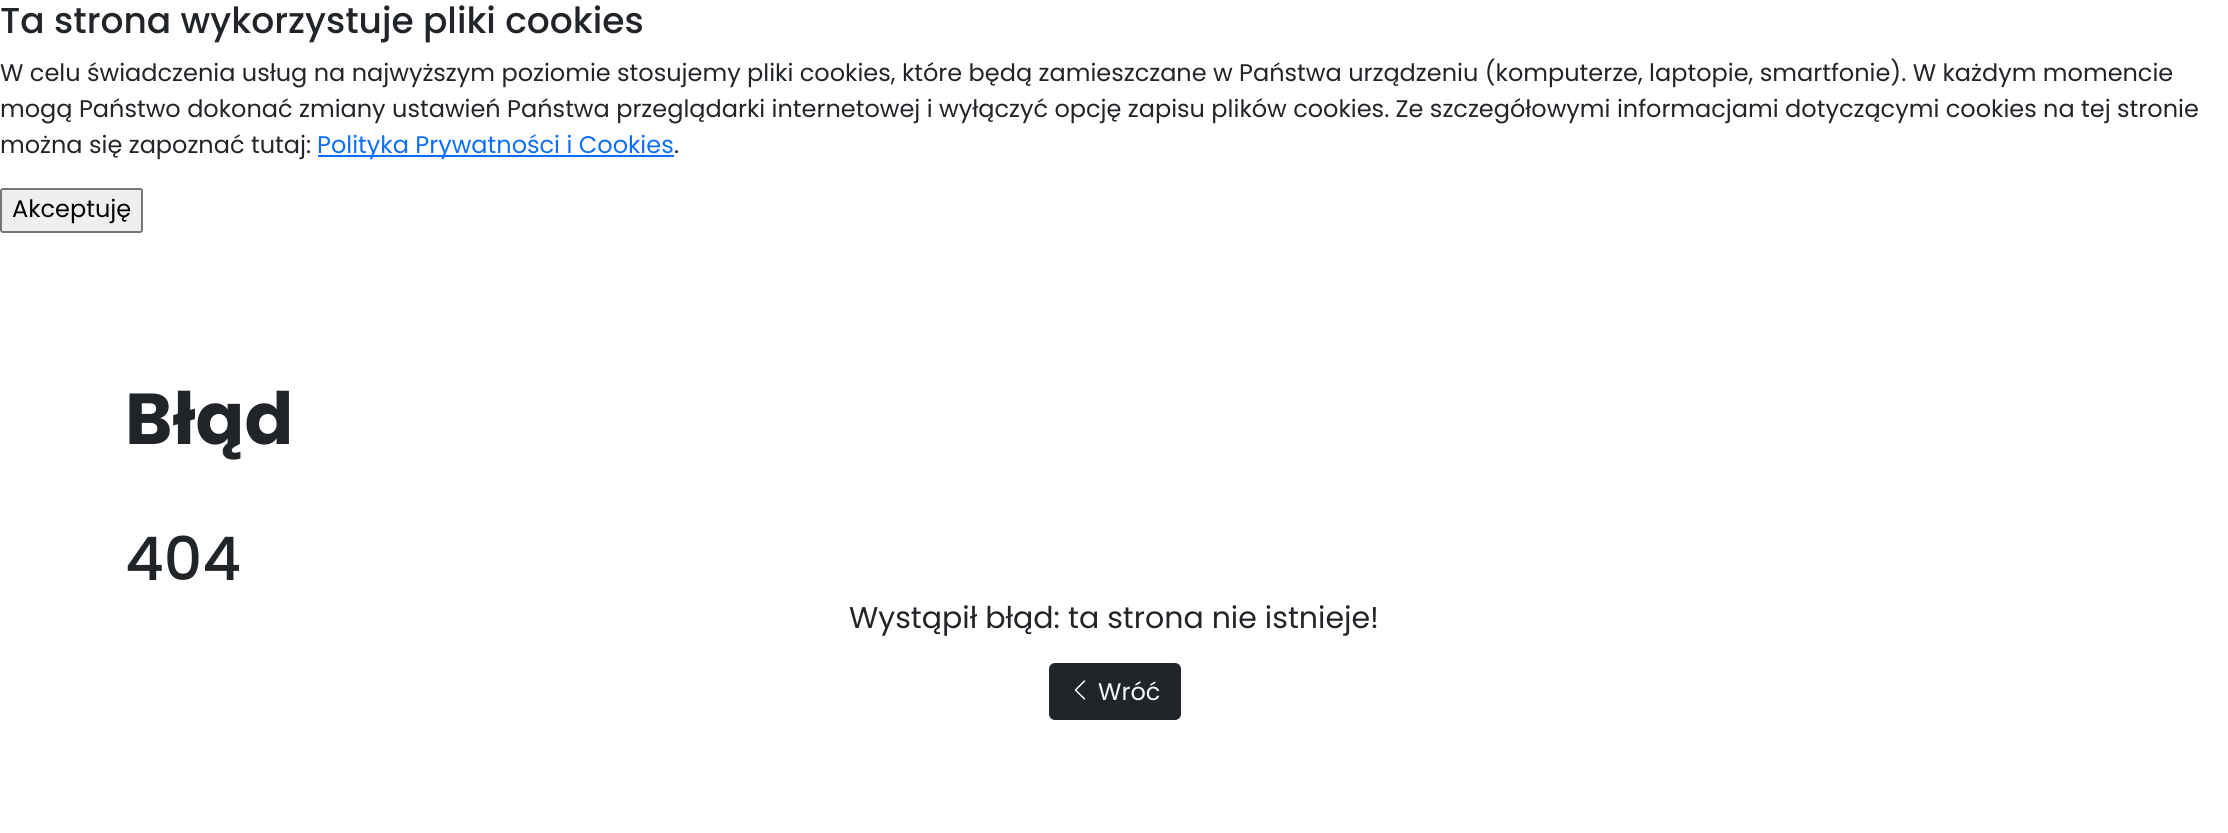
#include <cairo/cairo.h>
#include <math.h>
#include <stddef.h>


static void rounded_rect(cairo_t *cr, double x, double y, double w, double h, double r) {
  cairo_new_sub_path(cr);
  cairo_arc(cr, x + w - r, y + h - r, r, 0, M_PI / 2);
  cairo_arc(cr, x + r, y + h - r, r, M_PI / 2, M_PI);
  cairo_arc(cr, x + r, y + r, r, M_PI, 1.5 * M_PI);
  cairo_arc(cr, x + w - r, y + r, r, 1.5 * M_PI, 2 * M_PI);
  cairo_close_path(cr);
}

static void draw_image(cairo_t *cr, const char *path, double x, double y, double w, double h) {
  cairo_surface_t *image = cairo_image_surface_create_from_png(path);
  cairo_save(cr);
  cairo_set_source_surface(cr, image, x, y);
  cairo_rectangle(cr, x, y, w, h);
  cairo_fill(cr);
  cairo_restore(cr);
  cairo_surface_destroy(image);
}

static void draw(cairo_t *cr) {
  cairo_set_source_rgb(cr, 1, 1, 1);
  cairo_paint(cr);
  cairo_set_source_rgb(cr, 13 / 255.0, 110 / 255.0, 253 / 255.0);
  cairo_rectangle(cr, 318, 155, 356, 2);
  cairo_fill(cr);
  cairo_set_source_rgb(cr, 239 / 255.0, 239 / 255.0, 239 / 255.0);
  rounded_rect(cr, 1, 189, 141, 43, 2);
  cairo_fill_preserve(cr);
  cairo_set_source_rgb(cr, 118 / 255.0, 118 / 255.0, 118 / 255.0);
  cairo_stroke(cr);
  cairo_set_source_rgb(cr, 33 / 255.0, 37 / 255.0, 41 / 255.0);
  rounded_rect(cr, 1050, 664, 130, 55, 5);
  cairo_fill_preserve(cr);
  cairo_stroke(cr);
  draw_image(cr, "images/1.png", 1074, 680, 12, 20);
  cairo_select_font_face(cr, "Poppins Medium", CAIRO_FONT_SLANT_NORMAL, CAIRO_FONT_WEIGHT_NORMAL);
  cairo_set_font_size(cr, 36);
  cairo_move_to(cr, 0, 33);
  cairo_show_text(cr, "Ta strona wykorzystuje pliki cookies");
  cairo_select_font_face(cr, "Poppins", CAIRO_FONT_SLANT_NORMAL, CAIRO_FONT_WEIGHT_NORMAL);
  cairo_set_font_size(cr, 24);
  cairo_move_to(cr, 0, 81);
  cairo_show_text(cr, "W celu świadczenia usług na najwyższym poziomie stosujemy pliki cookies, które będą zamieszczane w Państwa urządzeniu (komputerze, laptopie, smartfonie). W każdym momencie");
  cairo_move_to(cr, 0, 117);
  cairo_show_text(cr, "mogą Państwo dokonać zmiany ustawień Państwa przeglądarki internetowej i wyłączyć opcję zapisu plików cookies. Ze szczegółowymi informacjami dotyczącymi cookies na tej stronie");
  cairo_move_to(cr, 0, 153);
  cairo_show_text(cr, "można się zapoznać tutaj:");
  cairo_set_source_rgb(cr, 13 / 255.0, 110 / 255.0, 253 / 255.0);
  cairo_move_to(cr, 317, 153);
  cairo_show_text(cr, "Polityka Prywatności i Cookies");
  cairo_set_source_rgb(cr, 33 / 255.0, 37 / 255.0, 41 / 255.0);
  cairo_move_to(cr, 674, 153);
  cairo_show_text(cr, ".");
  cairo_set_source_rgb(cr, 0, 0, 0);
  cairo_move_to(cr, 12, 217);
  cairo_show_text(cr, "Akceptuję");
  cairo_select_font_face(cr, "Poppins", CAIRO_FONT_SLANT_NORMAL, CAIRO_FONT_WEIGHT_BOLD);
  cairo_set_font_size(cr, 72);
  cairo_set_source_rgb(cr, 33 / 255.0, 37 / 255.0, 41 / 255.0);
  cairo_move_to(cr, 125, 444);
  cairo_show_text(cr, "Błąd");
  cairo_select_font_face(cr, "Poppins Medium", CAIRO_FONT_SLANT_NORMAL, CAIRO_FONT_WEIGHT_NORMAL);
  cairo_set_font_size(cr, 60);
  cairo_move_to(cr, 125, 580);
  cairo_show_text(cr, "404");
  cairo_select_font_face(cr, "Poppins", CAIRO_FONT_SLANT_NORMAL, CAIRO_FONT_WEIGHT_NORMAL);
  cairo_set_font_size(cr, 30);
  cairo_move_to(cr, 849, 628);
  cairo_show_text(cr, "Wystąpił błąd: ta strona nie istnieje!");
  cairo_set_font_size(cr, 24);
  cairo_set_source_rgb(cr, 248 / 255.0, 249 / 255.0, 250 / 255.0);
  cairo_move_to(cr, 1098, 700);
  cairo_show_text(cr, "Wróć");
}

int main(void) {
  cairo_surface_t *surface = cairo_image_surface_create(CAIRO_FORMAT_RGB24, 2228, 833);
  cairo_t *cr = cairo_create(surface);
  cairo_font_options_t *options = cairo_font_options_create();
  cairo_font_options_set_hint_metrics(options, CAIRO_HINT_METRICS_OFF);
  cairo_font_options_set_hint_style(options, CAIRO_HINT_STYLE_NONE);
  cairo_set_font_options(cr, options);
  cairo_set_miter_limit(cr, 4);
  draw(cr);
  cairo_surface_write_to_png(surface, "out.png");
  cairo_font_options_destroy(options);
  cairo_destroy(cr);
  cairo_surface_destroy(surface);
  return 0;
}
